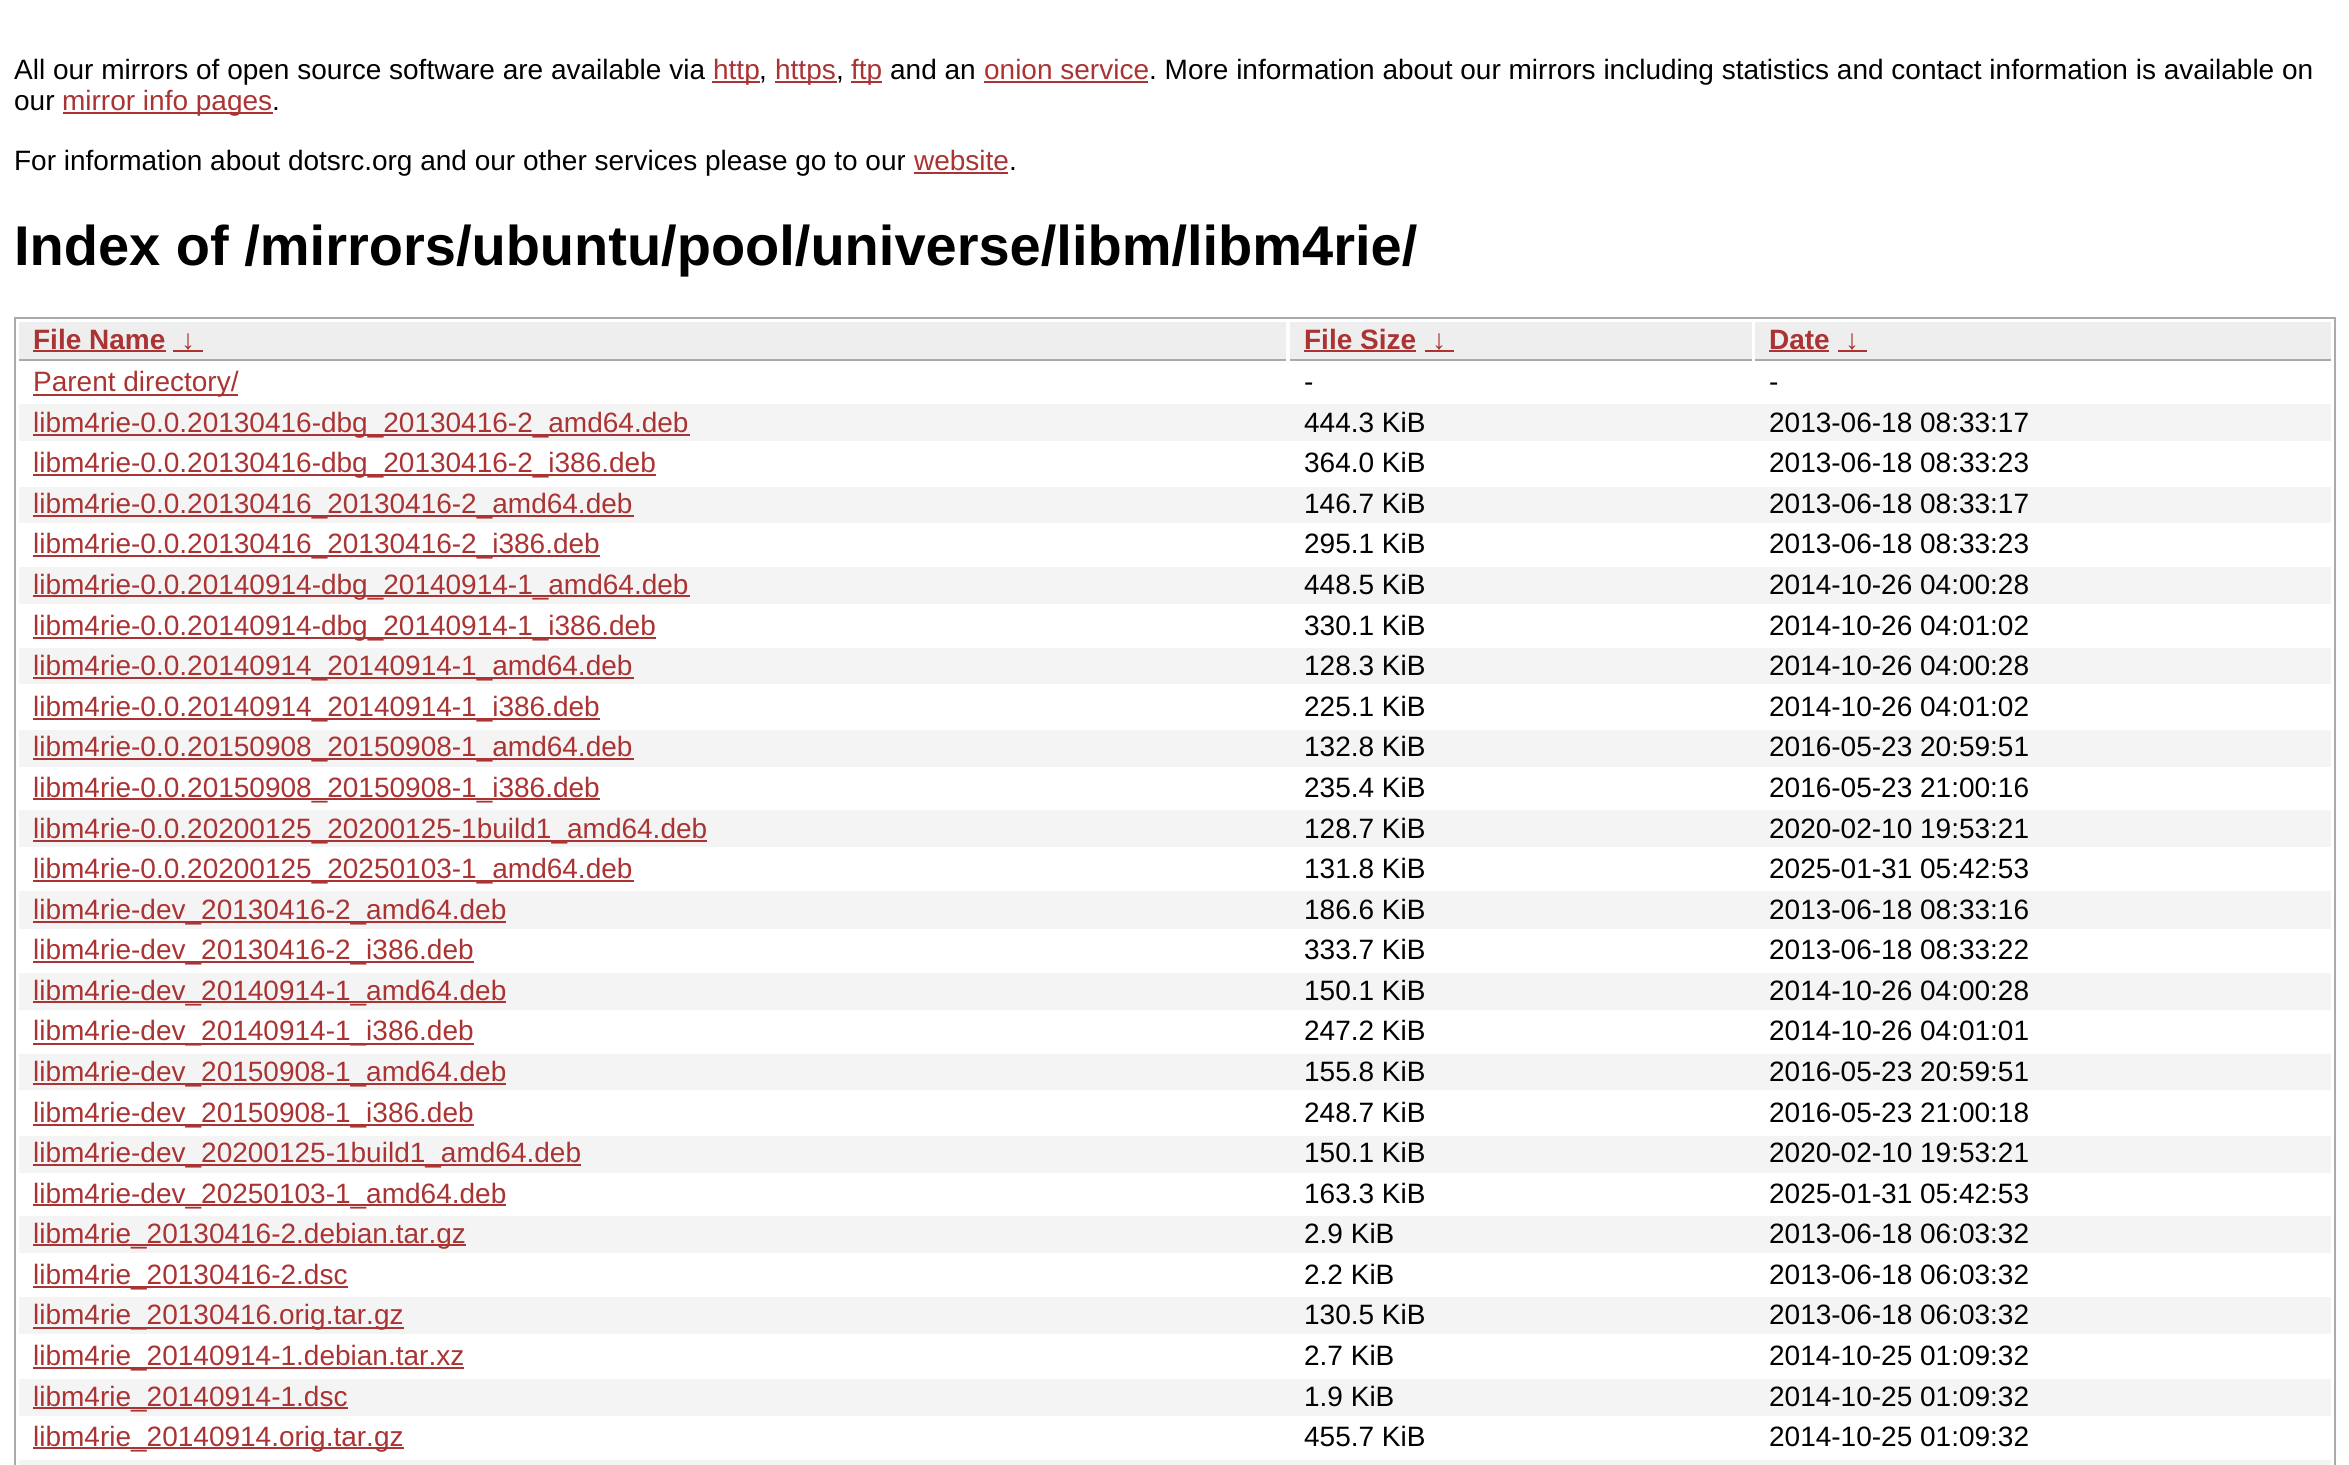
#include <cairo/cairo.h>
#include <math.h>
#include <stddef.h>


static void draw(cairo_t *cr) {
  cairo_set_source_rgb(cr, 1, 1, 1);
  cairo_paint(cr);
  cairo_set_source_rgb(cr, 170 / 255.0, 51 / 255.0, 51 / 255.0);
  cairo_rectangle(cr, 712, 81, 48, 2);
  cairo_fill(cr);
  cairo_rectangle(cr, 775, 81, 62, 2);
  cairo_fill(cr);
  cairo_rectangle(cr, 851, 81, 31, 2);
  cairo_fill(cr);
  cairo_rectangle(cr, 984, 81, 164, 2);
  cairo_fill(cr);
  cairo_rectangle(cr, 63, 112, 210, 2);
  cairo_fill(cr);
  cairo_rectangle(cr, 914, 172, 94, 2);
  cairo_fill(cr);
  cairo_rectangle(cr, 15, 318, 2320, 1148);
  cairo_set_source_rgb(cr, 170 / 255.0, 170 / 255.0, 170 / 255.0);
  cairo_stroke(cr);
  cairo_set_source_rgb(cr, 238 / 255.0, 238 / 255.0, 238 / 255.0);
  cairo_rectangle(cr, 19, 322, 1267, 37);
  cairo_fill(cr);
  cairo_set_source_rgb(cr, 170 / 255.0, 170 / 255.0, 170 / 255.0);
  cairo_rectangle(cr, 19, 359, 1267, 2);
  cairo_fill(cr);
  cairo_set_source_rgb(cr, 170 / 255.0, 51 / 255.0, 51 / 255.0);
  cairo_rectangle(cr, 33, 350, 133, 2);
  cairo_fill(cr);
  cairo_rectangle(cr, 173, 350, 30, 2);
  cairo_fill(cr);
  cairo_set_source_rgb(cr, 238 / 255.0, 238 / 255.0, 238 / 255.0);
  cairo_rectangle(cr, 1290, 322, 462, 37);
  cairo_fill(cr);
  cairo_set_source_rgb(cr, 170 / 255.0, 170 / 255.0, 170 / 255.0);
  cairo_rectangle(cr, 1290, 359, 462, 2);
  cairo_fill(cr);
  cairo_set_source_rgb(cr, 170 / 255.0, 51 / 255.0, 51 / 255.0);
  cairo_rectangle(cr, 1304, 350, 112, 2);
  cairo_fill(cr);
  cairo_rectangle(cr, 1425, 350, 29, 2);
  cairo_fill(cr);
  cairo_set_source_rgb(cr, 238 / 255.0, 238 / 255.0, 238 / 255.0);
  cairo_rectangle(cr, 1755, 322, 576, 37);
  cairo_fill(cr);
  cairo_set_source_rgb(cr, 170 / 255.0, 170 / 255.0, 170 / 255.0);
  cairo_rectangle(cr, 1755, 359, 576, 2);
  cairo_fill(cr);
  cairo_set_source_rgb(cr, 170 / 255.0, 51 / 255.0, 51 / 255.0);
  cairo_rectangle(cr, 1769, 350, 60, 2);
  cairo_fill(cr);
  cairo_rectangle(cr, 1838, 350, 29, 2);
  cairo_fill(cr);
  cairo_rectangle(cr, 33, 394, 205, 2);
  cairo_fill(cr);
  cairo_set_source_rgb(cr, 244 / 255.0, 244 / 255.0, 244 / 255.0);
  cairo_rectangle(cr, 19, 404, 2312, 37);
  cairo_fill(cr);
  cairo_set_source_rgb(cr, 170 / 255.0, 51 / 255.0, 51 / 255.0);
  cairo_rectangle(cr, 33, 434, 657, 2);
  cairo_fill(cr);
  cairo_rectangle(cr, 33, 474, 623, 2);
  cairo_fill(cr);
  cairo_set_source_rgb(cr, 244 / 255.0, 244 / 255.0, 244 / 255.0);
  cairo_rectangle(cr, 19, 487, 2312, 36);
  cairo_fill(cr);
  cairo_set_source_rgb(cr, 170 / 255.0, 51 / 255.0, 51 / 255.0);
  cairo_rectangle(cr, 33, 515, 601, 2);
  cairo_fill(cr);
  cairo_rectangle(cr, 33, 555, 567, 2);
  cairo_fill(cr);
  cairo_set_source_rgb(cr, 244 / 255.0, 244 / 255.0, 244 / 255.0);
  cairo_rectangle(cr, 19, 567, 2312, 37);
  cairo_fill(cr);
  cairo_set_source_rgb(cr, 170 / 255.0, 51 / 255.0, 51 / 255.0);
  cairo_rectangle(cr, 33, 595, 657, 2);
  cairo_fill(cr);
  cairo_rectangle(cr, 33, 637, 623, 2);
  cairo_fill(cr);
  cairo_set_source_rgb(cr, 244 / 255.0, 244 / 255.0, 244 / 255.0);
  cairo_rectangle(cr, 19, 648, 2312, 36);
  cairo_fill(cr);
  cairo_set_source_rgb(cr, 170 / 255.0, 51 / 255.0, 51 / 255.0);
  cairo_rectangle(cr, 33, 677, 601, 2);
  cairo_fill(cr);
  cairo_rectangle(cr, 33, 718, 567, 2);
  cairo_fill(cr);
  cairo_set_source_rgb(cr, 244 / 255.0, 244 / 255.0, 244 / 255.0);
  cairo_rectangle(cr, 19, 730, 2312, 37);
  cairo_fill(cr);
  cairo_set_source_rgb(cr, 170 / 255.0, 51 / 255.0, 51 / 255.0);
  cairo_rectangle(cr, 33, 758, 601, 2);
  cairo_fill(cr);
  cairo_rectangle(cr, 33, 798, 567, 2);
  cairo_fill(cr);
  cairo_set_source_rgb(cr, 244 / 255.0, 244 / 255.0, 244 / 255.0);
  cairo_rectangle(cr, 19, 810, 2312, 37);
  cairo_fill(cr);
  cairo_set_source_rgb(cr, 170 / 255.0, 51 / 255.0, 51 / 255.0);
  cairo_rectangle(cr, 33, 840, 674, 2);
  cairo_fill(cr);
  cairo_rectangle(cr, 33, 880, 601, 2);
  cairo_fill(cr);
  cairo_set_source_rgb(cr, 244 / 255.0, 244 / 255.0, 244 / 255.0);
  cairo_rectangle(cr, 19, 891, 2312, 38);
  cairo_fill(cr);
  cairo_set_source_rgb(cr, 170 / 255.0, 51 / 255.0, 51 / 255.0);
  cairo_rectangle(cr, 33, 921, 473, 2);
  cairo_fill(cr);
  cairo_rectangle(cr, 33, 961, 441, 2);
  cairo_fill(cr);
  cairo_set_source_rgb(cr, 244 / 255.0, 244 / 255.0, 244 / 255.0);
  cairo_rectangle(cr, 19, 973, 2312, 37);
  cairo_fill(cr);
  cairo_set_source_rgb(cr, 170 / 255.0, 51 / 255.0, 51 / 255.0);
  cairo_rectangle(cr, 33, 1001, 473, 2);
  cairo_fill(cr);
  cairo_rectangle(cr, 33, 1043, 441, 2);
  cairo_fill(cr);
  cairo_set_source_rgb(cr, 244 / 255.0, 244 / 255.0, 244 / 255.0);
  cairo_rectangle(cr, 19, 1054, 2312, 36);
  cairo_fill(cr);
  cairo_set_source_rgb(cr, 170 / 255.0, 51 / 255.0, 51 / 255.0);
  cairo_rectangle(cr, 33, 1083, 473, 2);
  cairo_fill(cr);
  cairo_rectangle(cr, 33, 1124, 441, 2);
  cairo_fill(cr);
  cairo_set_source_rgb(cr, 244 / 255.0, 244 / 255.0, 244 / 255.0);
  cairo_rectangle(cr, 19, 1136, 2312, 37);
  cairo_fill(cr);
  cairo_set_source_rgb(cr, 170 / 255.0, 51 / 255.0, 51 / 255.0);
  cairo_rectangle(cr, 33, 1164, 548, 2);
  cairo_fill(cr);
  cairo_rectangle(cr, 33, 1204, 473, 2);
  cairo_fill(cr);
  cairo_set_source_rgb(cr, 244 / 255.0, 244 / 255.0, 244 / 255.0);
  cairo_rectangle(cr, 19, 1216, 2312, 37);
  cairo_fill(cr);
  cairo_set_source_rgb(cr, 170 / 255.0, 51 / 255.0, 51 / 255.0);
  cairo_rectangle(cr, 33, 1244, 433, 2);
  cairo_fill(cr);
  cairo_rectangle(cr, 33, 1286, 315, 2);
  cairo_fill(cr);
  cairo_set_source_rgb(cr, 244 / 255.0, 244 / 255.0, 244 / 255.0);
  cairo_rectangle(cr, 19, 1297, 2312, 37);
  cairo_fill(cr);
  cairo_set_source_rgb(cr, 170 / 255.0, 51 / 255.0, 51 / 255.0);
  cairo_rectangle(cr, 33, 1327, 371, 2);
  cairo_fill(cr);
  cairo_rectangle(cr, 33, 1367, 431, 2);
  cairo_fill(cr);
  cairo_set_source_rgb(cr, 244 / 255.0, 244 / 255.0, 244 / 255.0);
  cairo_rectangle(cr, 19, 1379, 2312, 37);
  cairo_fill(cr);
  cairo_set_source_rgb(cr, 170 / 255.0, 51 / 255.0, 51 / 255.0);
  cairo_rectangle(cr, 33, 1407, 315, 2);
  cairo_fill(cr);
  cairo_rectangle(cr, 33, 1447, 371, 2);
  cairo_fill(cr);
  cairo_set_source_rgb(cr, 244 / 255.0, 244 / 255.0, 244 / 255.0);
  cairo_rectangle(cr, 19, 1460, 2312, 5);
  cairo_fill(cr);
  cairo_select_font_face(cr, "Liberation Sans", CAIRO_FONT_SLANT_NORMAL, CAIRO_FONT_WEIGHT_NORMAL);
  cairo_set_font_size(cr, 28);
  cairo_set_source_rgb(cr, 0, 0, 0);
  cairo_move_to(cr, 14, 79);
  cairo_show_text(cr, "All our mirrors of open source software are available via");
  cairo_set_source_rgb(cr, 170 / 255.0, 51 / 255.0, 51 / 255.0);
  cairo_move_to(cr, 713, 79);
  cairo_show_text(cr, "http");
  cairo_set_source_rgb(cr, 0, 0, 0);
  cairo_move_to(cr, 759, 79);
  cairo_show_text(cr, ",");
  cairo_set_source_rgb(cr, 170 / 255.0, 51 / 255.0, 51 / 255.0);
  cairo_move_to(cr, 775, 79);
  cairo_show_text(cr, "https");
  cairo_set_source_rgb(cr, 0, 0, 0);
  cairo_move_to(cr, 836, 79);
  cairo_show_text(cr, ",");
  cairo_set_source_rgb(cr, 170 / 255.0, 51 / 255.0, 51 / 255.0);
  cairo_move_to(cr, 851, 79);
  cairo_show_text(cr, "ftp");
  cairo_set_source_rgb(cr, 0, 0, 0);
  cairo_move_to(cr, 890, 79);
  cairo_show_text(cr, "and an");
  cairo_set_source_rgb(cr, 170 / 255.0, 51 / 255.0, 51 / 255.0);
  cairo_move_to(cr, 984, 79);
  cairo_show_text(cr, "onion service");
  cairo_set_source_rgb(cr, 0, 0, 0);
  cairo_move_to(cr, 1149, 79);
  cairo_show_text(cr, ". More information about our mirrors including statistics and contact information is available on");
  cairo_move_to(cr, 14, 110);
  cairo_show_text(cr, "our");
  cairo_set_source_rgb(cr, 170 / 255.0, 51 / 255.0, 51 / 255.0);
  cairo_move_to(cr, 62, 110);
  cairo_show_text(cr, "mirror info pages");
  cairo_set_source_rgb(cr, 0, 0, 0);
  cairo_move_to(cr, 272, 110);
  cairo_show_text(cr, ".");
  cairo_move_to(cr, 14, 170);
  cairo_show_text(cr, "For information about dotsrc.org and our other services please go to our");
  cairo_set_source_rgb(cr, 170 / 255.0, 51 / 255.0, 51 / 255.0);
  cairo_move_to(cr, 914, 170);
  cairo_show_text(cr, "website");
  cairo_set_source_rgb(cr, 0, 0, 0);
  cairo_move_to(cr, 1009, 170);
  cairo_show_text(cr, ".");
  cairo_select_font_face(cr, "Liberation Sans", CAIRO_FONT_SLANT_NORMAL, CAIRO_FONT_WEIGHT_BOLD);
  cairo_set_font_size(cr, 56);
  cairo_move_to(cr, 14, 265);
  cairo_show_text(cr, "Index of /mirrors/ubuntu/pool/universe/libm/libm4rie/");
  cairo_set_font_size(cr, 28);
  cairo_set_source_rgb(cr, 170 / 255.0, 51 / 255.0, 51 / 255.0);
  cairo_move_to(cr, 33, 349);
  cairo_show_text(cr, "File Name");
  cairo_move_to(cr, 181, 349);
  cairo_show_text(cr, "↓");
  cairo_move_to(cr, 1304, 349);
  cairo_show_text(cr, "File Size");
  cairo_move_to(cr, 1432, 349);
  cairo_show_text(cr, "↓");
  cairo_move_to(cr, 1769, 349);
  cairo_show_text(cr, "Date");
  cairo_move_to(cr, 1845, 349);
  cairo_show_text(cr, "↓");
  cairo_select_font_face(cr, "Liberation Sans", CAIRO_FONT_SLANT_NORMAL, CAIRO_FONT_WEIGHT_NORMAL);
  cairo_move_to(cr, 33, 391);
  cairo_show_text(cr, "Parent directory/");
  cairo_set_source_rgb(cr, 0, 0, 0);
  cairo_move_to(cr, 1304, 391);
  cairo_show_text(cr, "-");
  cairo_move_to(cr, 1769, 391);
  cairo_show_text(cr, "-");
  cairo_set_source_rgb(cr, 170 / 255.0, 51 / 255.0, 51 / 255.0);
  cairo_move_to(cr, 33, 432);
  cairo_show_text(cr, "libm4rie-0.0.20130416-dbg_20130416-2_amd64.deb");
  cairo_set_source_rgb(cr, 0, 0, 0);
  cairo_move_to(cr, 1304, 432);
  cairo_show_text(cr, "444.3 KiB");
  cairo_move_to(cr, 1769, 432);
  cairo_show_text(cr, "2013-06-18 08:33:17");
  cairo_set_source_rgb(cr, 170 / 255.0, 51 / 255.0, 51 / 255.0);
  cairo_move_to(cr, 33, 472);
  cairo_show_text(cr, "libm4rie-0.0.20130416-dbg_20130416-2_i386.deb");
  cairo_set_source_rgb(cr, 0, 0, 0);
  cairo_move_to(cr, 1304, 472);
  cairo_show_text(cr, "364.0 KiB");
  cairo_move_to(cr, 1769, 472);
  cairo_show_text(cr, "2013-06-18 08:33:23");
  cairo_set_source_rgb(cr, 170 / 255.0, 51 / 255.0, 51 / 255.0);
  cairo_move_to(cr, 33, 513);
  cairo_show_text(cr, "libm4rie-0.0.20130416_20130416-2_amd64.deb");
  cairo_set_source_rgb(cr, 0, 0, 0);
  cairo_move_to(cr, 1304, 513);
  cairo_show_text(cr, "146.7 KiB");
  cairo_move_to(cr, 1769, 513);
  cairo_show_text(cr, "2013-06-18 08:33:17");
  cairo_set_source_rgb(cr, 170 / 255.0, 51 / 255.0, 51 / 255.0);
  cairo_move_to(cr, 33, 553);
  cairo_show_text(cr, "libm4rie-0.0.20130416_20130416-2_i386.deb");
  cairo_set_source_rgb(cr, 0, 0, 0);
  cairo_move_to(cr, 1304, 553);
  cairo_show_text(cr, "295.1 KiB");
  cairo_move_to(cr, 1769, 553);
  cairo_show_text(cr, "2013-06-18 08:33:23");
  cairo_set_source_rgb(cr, 170 / 255.0, 51 / 255.0, 51 / 255.0);
  cairo_move_to(cr, 33, 594);
  cairo_show_text(cr, "libm4rie-0.0.20140914-dbg_20140914-1_amd64.deb");
  cairo_set_source_rgb(cr, 0, 0, 0);
  cairo_move_to(cr, 1304, 594);
  cairo_show_text(cr, "448.5 KiB");
  cairo_move_to(cr, 1769, 594);
  cairo_show_text(cr, "2014-10-26 04:00:28");
  cairo_set_source_rgb(cr, 170 / 255.0, 51 / 255.0, 51 / 255.0);
  cairo_move_to(cr, 33, 635);
  cairo_show_text(cr, "libm4rie-0.0.20140914-dbg_20140914-1_i386.deb");
  cairo_set_source_rgb(cr, 0, 0, 0);
  cairo_move_to(cr, 1304, 635);
  cairo_show_text(cr, "330.1 KiB");
  cairo_move_to(cr, 1769, 635);
  cairo_show_text(cr, "2014-10-26 04:01:02");
  cairo_set_source_rgb(cr, 170 / 255.0, 51 / 255.0, 51 / 255.0);
  cairo_move_to(cr, 33, 675);
  cairo_show_text(cr, "libm4rie-0.0.20140914_20140914-1_amd64.deb");
  cairo_set_source_rgb(cr, 0, 0, 0);
  cairo_move_to(cr, 1304, 675);
  cairo_show_text(cr, "128.3 KiB");
  cairo_move_to(cr, 1769, 675);
  cairo_show_text(cr, "2014-10-26 04:00:28");
  cairo_set_source_rgb(cr, 170 / 255.0, 51 / 255.0, 51 / 255.0);
  cairo_move_to(cr, 33, 716);
  cairo_show_text(cr, "libm4rie-0.0.20140914_20140914-1_i386.deb");
  cairo_set_source_rgb(cr, 0, 0, 0);
  cairo_move_to(cr, 1304, 716);
  cairo_show_text(cr, "225.1 KiB");
  cairo_move_to(cr, 1769, 716);
  cairo_show_text(cr, "2014-10-26 04:01:02");
  cairo_set_source_rgb(cr, 170 / 255.0, 51 / 255.0, 51 / 255.0);
  cairo_move_to(cr, 33, 756);
  cairo_show_text(cr, "libm4rie-0.0.20150908_20150908-1_amd64.deb");
  cairo_set_source_rgb(cr, 0, 0, 0);
  cairo_move_to(cr, 1304, 756);
  cairo_show_text(cr, "132.8 KiB");
  cairo_move_to(cr, 1769, 756);
  cairo_show_text(cr, "2016-05-23 20:59:51");
  cairo_set_source_rgb(cr, 170 / 255.0, 51 / 255.0, 51 / 255.0);
  cairo_move_to(cr, 33, 797);
  cairo_show_text(cr, "libm4rie-0.0.20150908_20150908-1_i386.deb");
  cairo_set_source_rgb(cr, 0, 0, 0);
  cairo_move_to(cr, 1304, 797);
  cairo_show_text(cr, "235.4 KiB");
  cairo_move_to(cr, 1769, 797);
  cairo_show_text(cr, "2016-05-23 21:00:16");
  cairo_set_source_rgb(cr, 170 / 255.0, 51 / 255.0, 51 / 255.0);
  cairo_move_to(cr, 33, 838);
  cairo_show_text(cr, "libm4rie-0.0.20200125_20200125-1build1_amd64.deb");
  cairo_set_source_rgb(cr, 0, 0, 0);
  cairo_move_to(cr, 1304, 838);
  cairo_show_text(cr, "128.7 KiB");
  cairo_move_to(cr, 1769, 838);
  cairo_show_text(cr, "2020-02-10 19:53:21");
  cairo_set_source_rgb(cr, 170 / 255.0, 51 / 255.0, 51 / 255.0);
  cairo_move_to(cr, 33, 878);
  cairo_show_text(cr, "libm4rie-0.0.20200125_20250103-1_amd64.deb");
  cairo_set_source_rgb(cr, 0, 0, 0);
  cairo_move_to(cr, 1304, 878);
  cairo_show_text(cr, "131.8 KiB");
  cairo_move_to(cr, 1769, 878);
  cairo_show_text(cr, "2025-01-31 05:42:53");
  cairo_set_source_rgb(cr, 170 / 255.0, 51 / 255.0, 51 / 255.0);
  cairo_move_to(cr, 33, 919);
  cairo_show_text(cr, "libm4rie-dev_20130416-2_amd64.deb");
  cairo_set_source_rgb(cr, 0, 0, 0);
  cairo_move_to(cr, 1304, 919);
  cairo_show_text(cr, "186.6 KiB");
  cairo_move_to(cr, 1769, 919);
  cairo_show_text(cr, "2013-06-18 08:33:16");
  cairo_set_source_rgb(cr, 170 / 255.0, 51 / 255.0, 51 / 255.0);
  cairo_move_to(cr, 33, 959);
  cairo_show_text(cr, "libm4rie-dev_20130416-2_i386.deb");
  cairo_set_source_rgb(cr, 0, 0, 0);
  cairo_move_to(cr, 1304, 959);
  cairo_show_text(cr, "333.7 KiB");
  cairo_move_to(cr, 1769, 959);
  cairo_show_text(cr, "2013-06-18 08:33:22");
  cairo_set_source_rgb(cr, 170 / 255.0, 51 / 255.0, 51 / 255.0);
  cairo_move_to(cr, 33, 1000);
  cairo_show_text(cr, "libm4rie-dev_20140914-1_amd64.deb");
  cairo_set_source_rgb(cr, 0, 0, 0);
  cairo_move_to(cr, 1304, 1000);
  cairo_show_text(cr, "150.1 KiB");
  cairo_move_to(cr, 1769, 1000);
  cairo_show_text(cr, "2014-10-26 04:00:28");
  cairo_set_source_rgb(cr, 170 / 255.0, 51 / 255.0, 51 / 255.0);
  cairo_move_to(cr, 33, 1040);
  cairo_show_text(cr, "libm4rie-dev_20140914-1_i386.deb");
  cairo_set_source_rgb(cr, 0, 0, 0);
  cairo_move_to(cr, 1304, 1040);
  cairo_show_text(cr, "247.2 KiB");
  cairo_move_to(cr, 1769, 1040);
  cairo_show_text(cr, "2014-10-26 04:01:01");
  cairo_set_source_rgb(cr, 170 / 255.0, 51 / 255.0, 51 / 255.0);
  cairo_move_to(cr, 33, 1081);
  cairo_show_text(cr, "libm4rie-dev_20150908-1_amd64.deb");
  cairo_set_source_rgb(cr, 0, 0, 0);
  cairo_move_to(cr, 1304, 1081);
  cairo_show_text(cr, "155.8 KiB");
  cairo_move_to(cr, 1769, 1081);
  cairo_show_text(cr, "2016-05-23 20:59:51");
  cairo_set_source_rgb(cr, 170 / 255.0, 51 / 255.0, 51 / 255.0);
  cairo_move_to(cr, 33, 1122);
  cairo_show_text(cr, "libm4rie-dev_20150908-1_i386.deb");
  cairo_set_source_rgb(cr, 0, 0, 0);
  cairo_move_to(cr, 1304, 1122);
  cairo_show_text(cr, "248.7 KiB");
  cairo_move_to(cr, 1769, 1122);
  cairo_show_text(cr, "2016-05-23 21:00:18");
  cairo_set_source_rgb(cr, 170 / 255.0, 51 / 255.0, 51 / 255.0);
  cairo_move_to(cr, 33, 1162);
  cairo_show_text(cr, "libm4rie-dev_20200125-1build1_amd64.deb");
  cairo_set_source_rgb(cr, 0, 0, 0);
  cairo_move_to(cr, 1304, 1162);
  cairo_show_text(cr, "150.1 KiB");
  cairo_move_to(cr, 1769, 1162);
  cairo_show_text(cr, "2020-02-10 19:53:21");
  cairo_set_source_rgb(cr, 170 / 255.0, 51 / 255.0, 51 / 255.0);
  cairo_move_to(cr, 33, 1203);
  cairo_show_text(cr, "libm4rie-dev_20250103-1_amd64.deb");
  cairo_set_source_rgb(cr, 0, 0, 0);
  cairo_move_to(cr, 1304, 1203);
  cairo_show_text(cr, "163.3 KiB");
  cairo_move_to(cr, 1769, 1203);
  cairo_show_text(cr, "2025-01-31 05:42:53");
  cairo_set_source_rgb(cr, 170 / 255.0, 51 / 255.0, 51 / 255.0);
  cairo_move_to(cr, 33, 1243);
  cairo_show_text(cr, "libm4rie_20130416-2.debian.tar.gz");
  cairo_set_source_rgb(cr, 0, 0, 0);
  cairo_move_to(cr, 1304, 1243);
  cairo_show_text(cr, "2.9 KiB");
  cairo_move_to(cr, 1769, 1243);
  cairo_show_text(cr, "2013-06-18 06:03:32");
  cairo_set_source_rgb(cr, 170 / 255.0, 51 / 255.0, 51 / 255.0);
  cairo_move_to(cr, 33, 1284);
  cairo_show_text(cr, "libm4rie_20130416-2.dsc");
  cairo_set_source_rgb(cr, 0, 0, 0);
  cairo_move_to(cr, 1304, 1284);
  cairo_show_text(cr, "2.2 KiB");
  cairo_move_to(cr, 1769, 1284);
  cairo_show_text(cr, "2013-06-18 06:03:32");
  cairo_set_source_rgb(cr, 170 / 255.0, 51 / 255.0, 51 / 255.0);
  cairo_move_to(cr, 33, 1324);
  cairo_show_text(cr, "libm4rie_20130416.orig.tar.gz");
  cairo_set_source_rgb(cr, 0, 0, 0);
  cairo_move_to(cr, 1304, 1324);
  cairo_show_text(cr, "130.5 KiB");
  cairo_move_to(cr, 1769, 1324);
  cairo_show_text(cr, "2013-06-18 06:03:32");
  cairo_set_source_rgb(cr, 170 / 255.0, 51 / 255.0, 51 / 255.0);
  cairo_move_to(cr, 33, 1365);
  cairo_show_text(cr, "libm4rie_20140914-1.debian.tar.xz");
  cairo_set_source_rgb(cr, 0, 0, 0);
  cairo_move_to(cr, 1304, 1365);
  cairo_show_text(cr, "2.7 KiB");
  cairo_move_to(cr, 1769, 1365);
  cairo_show_text(cr, "2014-10-25 01:09:32");
  cairo_set_source_rgb(cr, 170 / 255.0, 51 / 255.0, 51 / 255.0);
  cairo_move_to(cr, 33, 1406);
  cairo_show_text(cr, "libm4rie_20140914-1.dsc");
  cairo_set_source_rgb(cr, 0, 0, 0);
  cairo_move_to(cr, 1304, 1406);
  cairo_show_text(cr, "1.9 KiB");
  cairo_move_to(cr, 1769, 1406);
  cairo_show_text(cr, "2014-10-25 01:09:32");
  cairo_set_source_rgb(cr, 170 / 255.0, 51 / 255.0, 51 / 255.0);
  cairo_move_to(cr, 33, 1446);
  cairo_show_text(cr, "libm4rie_20140914.orig.tar.gz");
  cairo_set_source_rgb(cr, 0, 0, 0);
  cairo_move_to(cr, 1304, 1446);
  cairo_show_text(cr, "455.7 KiB");
  cairo_move_to(cr, 1769, 1446);
  cairo_show_text(cr, "2014-10-25 01:09:32");
}

int main(void) {
  cairo_surface_t *surface = cairo_image_surface_create(CAIRO_FORMAT_RGB24, 2349, 1465);
  cairo_t *cr = cairo_create(surface);
  cairo_font_options_t *options = cairo_font_options_create();
  cairo_font_options_set_hint_metrics(options, CAIRO_HINT_METRICS_OFF);
  cairo_font_options_set_hint_style(options, CAIRO_HINT_STYLE_NONE);
  cairo_set_font_options(cr, options);
  cairo_set_miter_limit(cr, 4);
  draw(cr);
  cairo_surface_write_to_png(surface, "out.png");
  cairo_font_options_destroy(options);
  cairo_destroy(cr);
  cairo_surface_destroy(surface);
  return 0;
}
